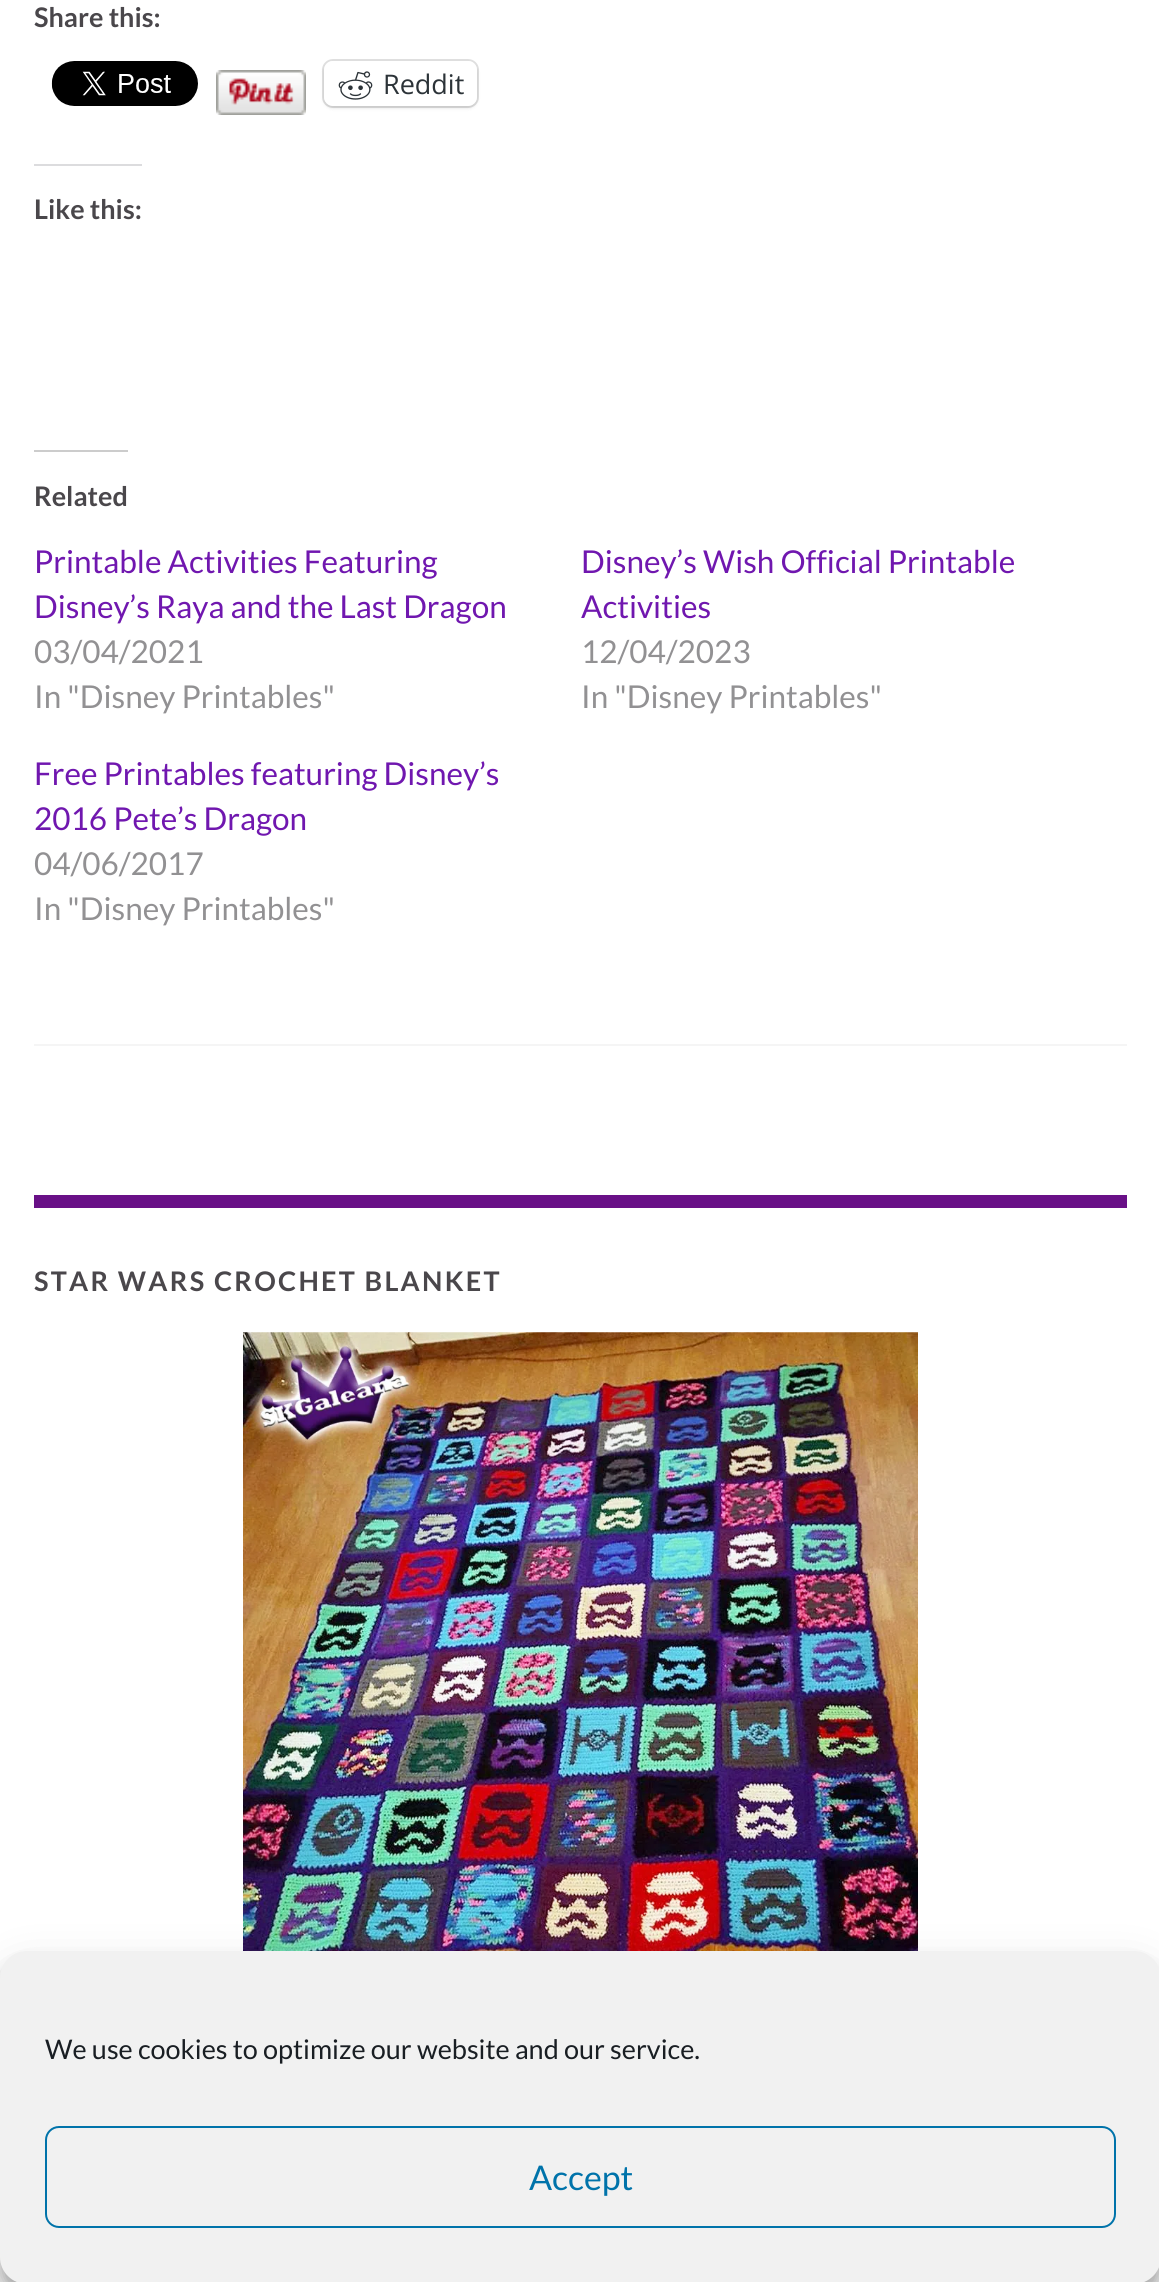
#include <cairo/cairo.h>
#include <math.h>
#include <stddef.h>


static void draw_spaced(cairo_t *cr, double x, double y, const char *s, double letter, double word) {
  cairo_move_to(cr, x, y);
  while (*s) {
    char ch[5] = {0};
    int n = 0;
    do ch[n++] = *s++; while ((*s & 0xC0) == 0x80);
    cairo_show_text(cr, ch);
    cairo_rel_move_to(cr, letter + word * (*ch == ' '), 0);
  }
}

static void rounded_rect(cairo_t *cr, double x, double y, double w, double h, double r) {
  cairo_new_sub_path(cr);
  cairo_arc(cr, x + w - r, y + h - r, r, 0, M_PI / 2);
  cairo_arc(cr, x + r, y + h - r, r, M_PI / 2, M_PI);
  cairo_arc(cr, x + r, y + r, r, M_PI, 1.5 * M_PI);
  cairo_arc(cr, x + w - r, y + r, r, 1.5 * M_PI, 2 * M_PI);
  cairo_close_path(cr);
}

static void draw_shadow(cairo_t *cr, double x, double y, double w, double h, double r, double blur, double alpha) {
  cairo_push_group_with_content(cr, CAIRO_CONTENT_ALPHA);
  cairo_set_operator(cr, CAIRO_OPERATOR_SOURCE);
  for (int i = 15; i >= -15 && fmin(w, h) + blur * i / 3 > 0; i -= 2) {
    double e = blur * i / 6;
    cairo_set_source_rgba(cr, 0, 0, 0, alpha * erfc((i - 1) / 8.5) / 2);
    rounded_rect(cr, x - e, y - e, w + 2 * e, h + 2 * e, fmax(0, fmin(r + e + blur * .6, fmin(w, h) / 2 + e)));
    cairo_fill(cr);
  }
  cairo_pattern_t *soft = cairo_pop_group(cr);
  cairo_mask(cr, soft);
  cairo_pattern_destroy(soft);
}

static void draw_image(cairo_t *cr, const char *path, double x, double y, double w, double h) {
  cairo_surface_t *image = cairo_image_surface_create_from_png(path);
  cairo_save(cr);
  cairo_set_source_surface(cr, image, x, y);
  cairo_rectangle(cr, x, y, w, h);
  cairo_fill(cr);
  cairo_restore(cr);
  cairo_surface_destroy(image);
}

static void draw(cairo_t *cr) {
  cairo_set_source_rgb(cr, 1, 1, 1);
  cairo_paint(cr);
  draw_image(cr, "images/1.png", 51, 61, 147, 45);
  draw_image(cr, "images/2.png", 216, 70, 90, 45);
  rounded_rect(cr, 323, 60, 155, 47, 10);
  cairo_set_source_rgb(cr, 224 / 255.0, 224 / 255.0, 224 / 255.0);
  cairo_stroke(cr);
  cairo_set_source_rgb(cr, 0, 0, 0);
  draw_shadow(cr, 324, 63, 153, 45, 9, 2, 0.12);
  cairo_set_source_rgb(cr, 1, 1, 1);
  rounded_rect(cr, 324, 61, 153, 45, 9);
  cairo_fill(cr);
  draw_image(cr, "images/3.png", 338, 71, 35, 29);
  cairo_set_source_rgb(cr, 220 / 255.0, 220 / 255.0, 222 / 255.0);
  cairo_rectangle(cr, 34, 164, 108, 2);
  cairo_fill(cr);
  cairo_set_source_rgb(cr, 204 / 255.0, 204 / 255.0, 204 / 255.0);
  cairo_rectangle(cr, 34, 450, 94, 2);
  cairo_fill(cr);
  cairo_set_source_rgb(cr, 245 / 255.0, 245 / 255.0, 245 / 255.0);
  cairo_rectangle(cr, 34, 1044, 1093, 2);
  cairo_fill(cr);
  cairo_set_source_rgb(cr, 105 / 255.0, 16 / 255.0, 135 / 255.0);
  cairo_rectangle(cr, 34, 1195, 1093, 13);
  cairo_fill(cr);
  draw_image(cr, "images/4.png", 243, 1332, 675, 619);
  cairo_set_source_rgb(cr, 0, 0, 0);
  draw_shadow(cr, 0, 1964, 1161, 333, 27, 7, 0.23);
  draw_shadow(cr, 0, 1973, 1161, 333, 27, 22.5, 0.19);
  cairo_set_source_rgb(cr, 241 / 255.0, 241 / 255.0, 241 / 255.0);
  rounded_rect(cr, 0, 1951, 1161, 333, 27);
  cairo_fill(cr);
  rounded_rect(cr, 46, 2127, 1069, 100, 13);
  cairo_set_source_rgb(cr, 0, 115 / 255.0, 170 / 255.0);
  cairo_stroke(cr);
  cairo_select_font_face(cr, "Lato", CAIRO_FONT_SLANT_NORMAL, CAIRO_FONT_WEIGHT_BOLD);
  cairo_set_font_size(cr, 27);
  cairo_set_source_rgb(cr, 74 / 255.0, 71 / 255.0, 75 / 255.0);
  cairo_move_to(cr, 34, 27);
  cairo_show_text(cr, "Share this:");
  cairo_select_font_face(cr, "Open Sans", CAIRO_FONT_SLANT_NORMAL, CAIRO_FONT_WEIGHT_NORMAL);
  cairo_set_source_rgb(cr, 44 / 255.0, 51 / 255.0, 56 / 255.0);
  cairo_move_to(cr, 383, 94);
  cairo_show_text(cr, "Reddit");
  cairo_select_font_face(cr, "Lato", CAIRO_FONT_SLANT_NORMAL, CAIRO_FONT_WEIGHT_BOLD);
  cairo_set_source_rgb(cr, 74 / 255.0, 71 / 255.0, 75 / 255.0);
  cairo_move_to(cr, 34, 219);
  cairo_show_text(cr, "Like this:");
  cairo_move_to(cr, 34, 506);
  cairo_show_text(cr, "Related");
  cairo_select_font_face(cr, "Lato", CAIRO_FONT_SLANT_NORMAL, CAIRO_FONT_WEIGHT_NORMAL);
  cairo_set_font_size(cr, 31.5);
  cairo_set_source_rgb(cr, 112 / 255.0, 23 / 255.0, 175 / 255.0);
  cairo_move_to(cr, 34, 573);
  cairo_show_text(cr, "Printable Activities Featuring");
  cairo_move_to(cr, 34, 618);
  cairo_show_text(cr, "Disney’s Raya and the Last Dragon");
  cairo_set_source_rgb(cr, 146 / 255.0, 145 / 255.0, 147 / 255.0);
  cairo_move_to(cr, 34, 663);
  cairo_show_text(cr, "03/04/2021");
  cairo_move_to(cr, 34, 708);
  cairo_show_text(cr, "In \"Disney Printables\"");
  cairo_set_source_rgb(cr, 112 / 255.0, 23 / 255.0, 175 / 255.0);
  cairo_move_to(cr, 581, 573);
  cairo_show_text(cr, "Disney’s Wish Official Printable");
  cairo_move_to(cr, 581, 618);
  cairo_show_text(cr, "Activities");
  cairo_set_source_rgb(cr, 146 / 255.0, 145 / 255.0, 147 / 255.0);
  cairo_move_to(cr, 581, 663);
  cairo_show_text(cr, "12/04/2023");
  cairo_move_to(cr, 581, 708);
  cairo_show_text(cr, "In \"Disney Printables\"");
  cairo_set_source_rgb(cr, 112 / 255.0, 23 / 255.0, 175 / 255.0);
  cairo_move_to(cr, 34, 785);
  cairo_show_text(cr, "Free Printables featuring Disney’s");
  cairo_move_to(cr, 34, 830);
  cairo_show_text(cr, "2016 Pete’s Dragon");
  cairo_set_source_rgb(cr, 146 / 255.0, 145 / 255.0, 147 / 255.0);
  cairo_move_to(cr, 34, 875);
  cairo_show_text(cr, "04/06/2017");
  cairo_move_to(cr, 34, 920);
  cairo_show_text(cr, "In \"Disney Printables\"");
  cairo_select_font_face(cr, "Lato", CAIRO_FONT_SLANT_NORMAL, CAIRO_FONT_WEIGHT_BOLD);
  cairo_set_font_size(cr, 27);
  cairo_set_source_rgb(cr, 74 / 255.0, 71 / 255.0, 75 / 255.0);
  draw_spaced(cr, 34, 1291, "STAR WARS CROCHET BLANKET", 2.25, 0);
  cairo_select_font_face(cr, "Lato", CAIRO_FONT_SLANT_NORMAL, CAIRO_FONT_WEIGHT_NORMAL);
  cairo_set_source_rgb(cr, 25 / 255.0, 30 / 255.0, 35 / 255.0);
  cairo_move_to(cr, 45, 2059);
  cairo_show_text(cr, "We use cookies to optimize our website and our service.");
  cairo_set_font_size(cr, 34);
  cairo_set_source_rgb(cr, 0, 115 / 255.0, 170 / 255.0);
  cairo_move_to(cr, 529, 2190);
  cairo_show_text(cr, "Accept");
}

int main(void) {
  cairo_surface_t *surface = cairo_image_surface_create(CAIRO_FORMAT_RGB24, 1159, 2282);
  cairo_t *cr = cairo_create(surface);
  cairo_font_options_t *options = cairo_font_options_create();
  cairo_font_options_set_hint_metrics(options, CAIRO_HINT_METRICS_OFF);
  cairo_font_options_set_hint_style(options, CAIRO_HINT_STYLE_NONE);
  cairo_set_font_options(cr, options);
  cairo_set_miter_limit(cr, 4);
  draw(cr);
  cairo_surface_write_to_png(surface, "out.png");
  cairo_font_options_destroy(options);
  cairo_destroy(cr);
  cairo_surface_destroy(surface);
  return 0;
}
